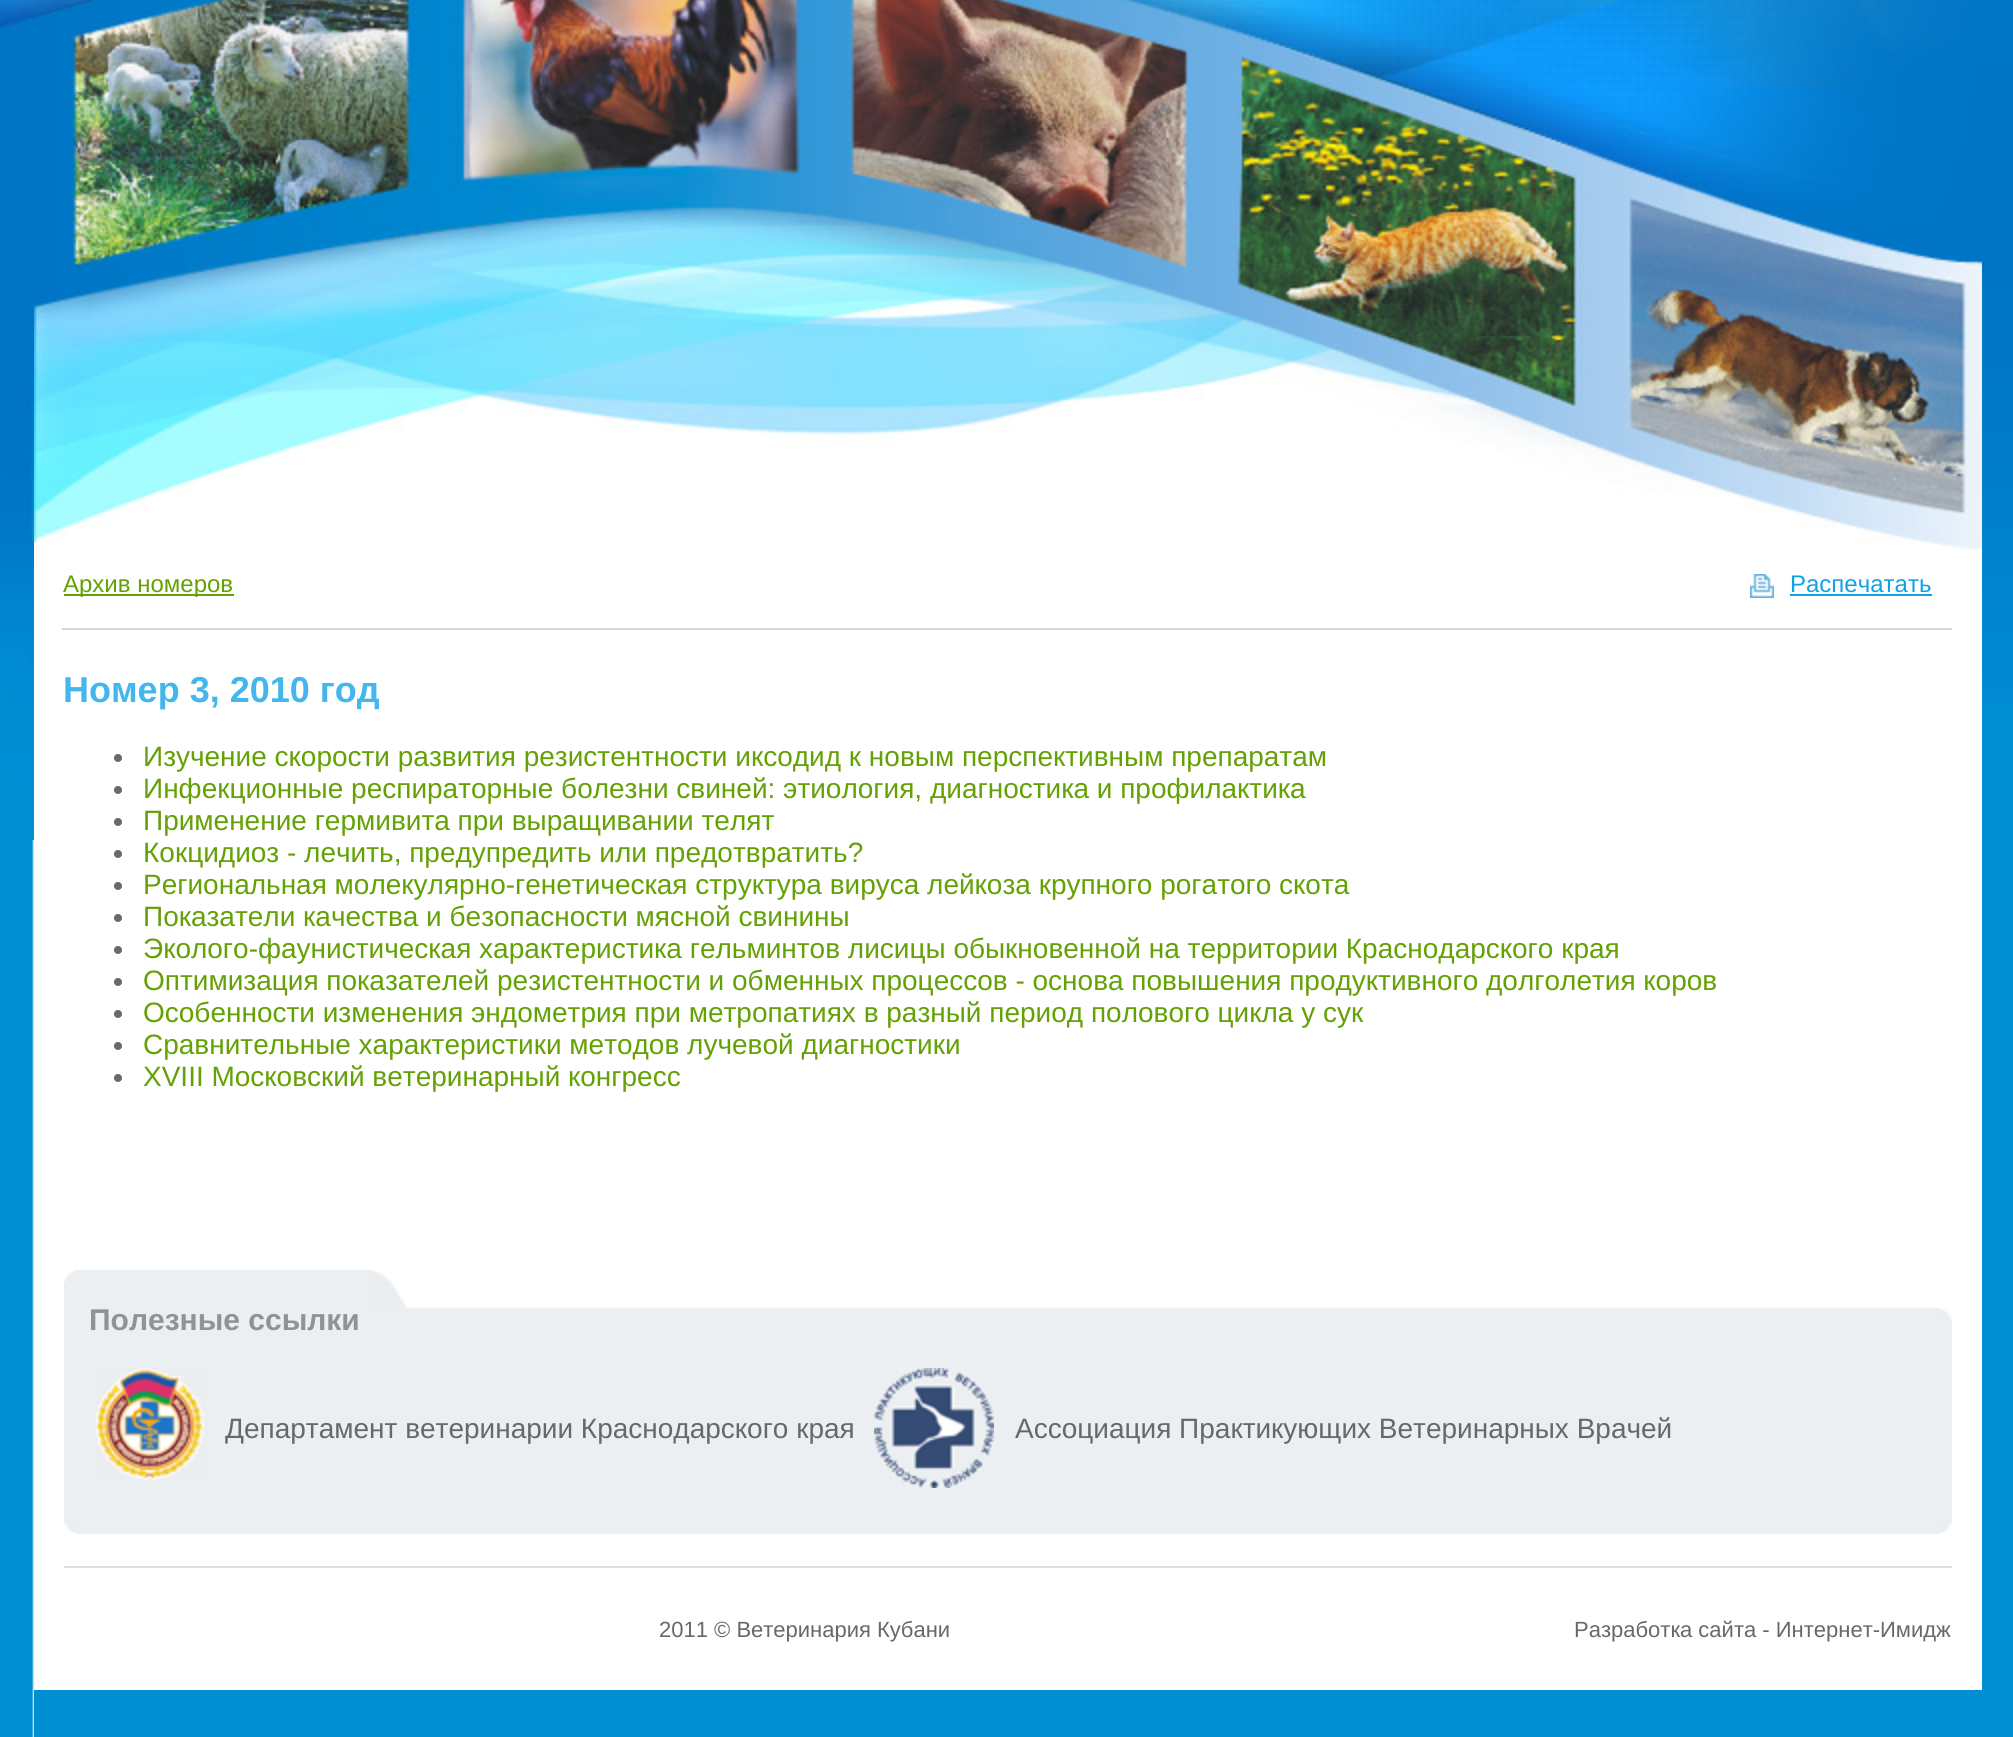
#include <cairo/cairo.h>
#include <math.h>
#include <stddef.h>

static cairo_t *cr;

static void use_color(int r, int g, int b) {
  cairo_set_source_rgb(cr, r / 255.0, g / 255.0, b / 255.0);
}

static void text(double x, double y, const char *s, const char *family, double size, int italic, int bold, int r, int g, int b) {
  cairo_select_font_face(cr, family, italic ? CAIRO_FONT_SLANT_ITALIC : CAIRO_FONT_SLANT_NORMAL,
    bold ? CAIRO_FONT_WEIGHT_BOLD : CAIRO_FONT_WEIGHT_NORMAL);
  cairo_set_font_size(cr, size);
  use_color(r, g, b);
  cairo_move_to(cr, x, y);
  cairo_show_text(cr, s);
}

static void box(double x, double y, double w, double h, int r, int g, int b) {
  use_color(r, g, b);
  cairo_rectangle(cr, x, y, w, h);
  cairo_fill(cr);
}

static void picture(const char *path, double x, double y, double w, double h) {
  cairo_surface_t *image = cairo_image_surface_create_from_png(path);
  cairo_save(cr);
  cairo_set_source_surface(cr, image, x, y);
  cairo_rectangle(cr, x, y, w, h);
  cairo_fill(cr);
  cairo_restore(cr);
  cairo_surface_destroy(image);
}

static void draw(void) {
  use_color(255, 255, 255);
  cairo_paint(cr);
  picture("img_01.png", 0, 840, 34, 897);
  picture("img_02.png", 0, 0, 34, 840);
  box(1982, 703, 31, 1034, 0, 143, 211);
  picture("img_03.png", 1982, 0, 31, 703);
  picture("img_04.png", 34, 0, 1948, 550);
  box(64, 594, 170, 2, 100, 161, 5);
  box(62, 628, 1890, 2, 216, 216, 216);
  picture("img_05.png", 1750, 574, 24, 24);
  box(1790, 594, 142, 2, 17, 162, 229);
  use_color(104, 104, 104);
  cairo_arc(cr, 118, 758, 4, 0, 2 * M_PI);
  cairo_fill(cr);
  cairo_arc(cr, 118, 790, 4, 0, 2 * M_PI);
  cairo_fill(cr);
  cairo_arc(cr, 118, 822, 4, 0, 2 * M_PI);
  cairo_fill(cr);
  cairo_arc(cr, 118, 854, 4, 0, 2 * M_PI);
  cairo_fill(cr);
  cairo_arc(cr, 118, 886, 4, 0, 2 * M_PI);
  cairo_fill(cr);
  cairo_arc(cr, 118, 918, 4, 0, 2 * M_PI);
  cairo_fill(cr);
  cairo_arc(cr, 118, 950, 4, 0, 2 * M_PI);
  cairo_fill(cr);
  cairo_arc(cr, 118, 982, 4, 0, 2 * M_PI);
  cairo_fill(cr);
  cairo_arc(cr, 118, 1014, 4, 0, 2 * M_PI);
  cairo_fill(cr);
  cairo_arc(cr, 118, 1046, 4, 0, 2 * M_PI);
  cairo_fill(cr);
  cairo_arc(cr, 118, 1078, 4, 0, 2 * M_PI);
  cairo_fill(cr);
  box(64, 1270, 1888, 264, 235, 239, 242);
  picture("img_06.png", 64, 1270, 11, 12);
  picture("img_07.png", 372, 1270, 40, 39);
  picture("img_08.png", 412, 1270, 1540, 39);
  picture("img_09.png", 1940, 1307, 12, 13);
  picture("img_10.png", 94, 1368, 111, 112);
  picture("img_11.png", 874, 1368, 120, 120);
  picture("img_12.png", 64, 1522, 13, 12);
  picture("img_13.png", 1939, 1522, 13, 12);
  box(34, 1690, 1948, 47, 0, 143, 211);
  box(64, 1566, 1888, 2, 223, 223, 223);
  text(63, 592, "Архив номеров", "Liberation Sans", 24, 0, 0, 100, 161, 5);
  text(1790, 592, "Распечатать", "Liberation Sans", 24, 0, 0, 17, 162, 229);
  text(63, 702, "Номер 3, 2010 год", "Liberation Sans", 36, 0, 1, 67, 182, 237);
  text(143, 766, "Изучение скорости развития резистентности иксодид к новым перспективным препаратам", "Liberation Sans", 28, 0, 0, 100, 161, 5);
  text(143, 798, "Инфекционные респираторные болезни свиней: этиология, диагностика и профилактика", "Liberation Sans", 28, 0, 0, 100, 161, 5);
  text(143, 830, "Применение гермивита при выращивании телят", "Liberation Sans", 28, 0, 0, 100, 161, 5);
  text(143, 862, "Кокцидиоз - лечить, предупредить или предотвратить?", "Liberation Sans", 28, 0, 0, 100, 161, 5);
  text(143, 894, "Региональная молекулярно-генетическая структура вируса лейкоза крупного рогатого скота", "Liberation Sans", 28, 0, 0, 100, 161, 5);
  text(143, 926, "Показатели качества и безопасности мясной свинины", "Liberation Sans", 28, 0, 0, 100, 161, 5);
  text(143, 958, "Эколого-фаунистическая характеристика гельминтов лисицы обыкновенной на территории Краснодарского края", "Liberation Sans", 28, 0, 0, 100, 161, 5);
  text(143, 990, "Оптимизация показателей резистентности и обменных процессов - основа повышения продуктивного долголетия коров", "Liberation Sans", 28, 0, 0, 100, 161, 5);
  text(143, 1022, "Особенности изменения эндометрия при метропатиях в разный период полового цикла у сук", "Liberation Sans", 28, 0, 0, 100, 161, 5);
  text(143, 1054, "Сравнительные характеристики методов лучевой диагностики", "Liberation Sans", 28, 0, 0, 100, 161, 5);
  text(143, 1086, "XVIII Московский ветеринарный конгресс", "Liberation Sans", 28, 0, 0, 100, 161, 5);
  text(89, 1330, "Полезные ссылки", "Liberation Sans", 30, 0, 1, 146, 146, 148);
  text(225, 1438, "Департамент ветеринарии Краснодарского края", "Liberation Sans", 28, 0, 0, 104, 104, 104);
  text(1015, 1438, "Ассоциация Практикующих Ветеринарных Врачей", "Liberation Sans", 28, 0, 0, 104, 104, 104);
  text(659, 1637, "2011 © Ветеринария Кубани", "Liberation Sans", 22, 0, 0, 104, 104, 104);
  text(1574, 1637, "Разработка сайта - Интернет-Имидж", "Liberation Sans", 22, 0, 0, 104, 104, 104);
}

int main(void) {
  cairo_surface_t *surface = cairo_image_surface_create(CAIRO_FORMAT_RGB24, 2013, 1737);
  cr = cairo_create(surface);
  cairo_font_options_t *options = cairo_font_options_create();
  cairo_font_options_set_hint_metrics(options, CAIRO_HINT_METRICS_OFF);
  cairo_font_options_set_hint_style(options, CAIRO_HINT_STYLE_NONE);
  cairo_set_font_options(cr, options);
  cairo_set_miter_limit(cr, 4);
  draw();
  cairo_surface_write_to_png(surface, "out.png");
  cairo_font_options_destroy(options);
  cairo_destroy(cr);
  cairo_surface_destroy(surface);
  return 0;
}
